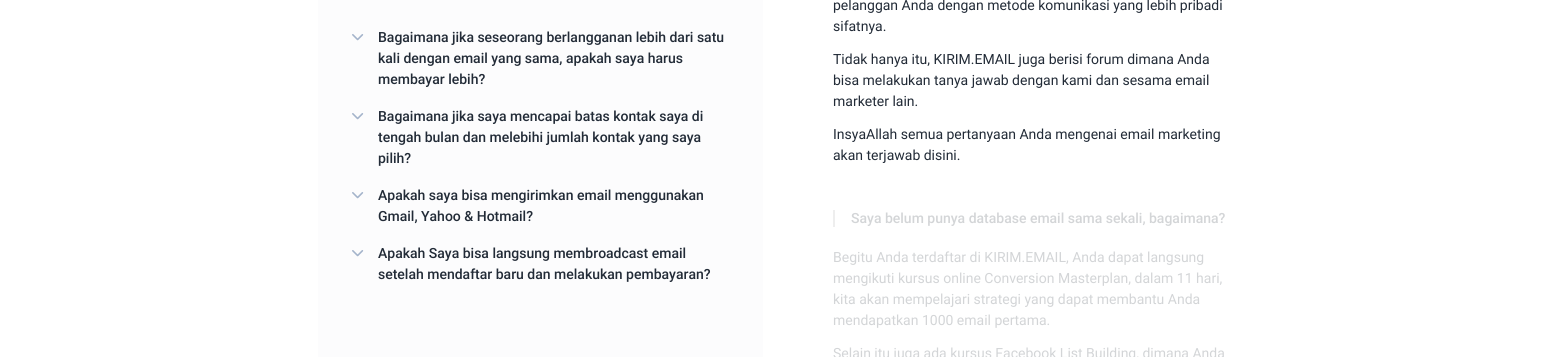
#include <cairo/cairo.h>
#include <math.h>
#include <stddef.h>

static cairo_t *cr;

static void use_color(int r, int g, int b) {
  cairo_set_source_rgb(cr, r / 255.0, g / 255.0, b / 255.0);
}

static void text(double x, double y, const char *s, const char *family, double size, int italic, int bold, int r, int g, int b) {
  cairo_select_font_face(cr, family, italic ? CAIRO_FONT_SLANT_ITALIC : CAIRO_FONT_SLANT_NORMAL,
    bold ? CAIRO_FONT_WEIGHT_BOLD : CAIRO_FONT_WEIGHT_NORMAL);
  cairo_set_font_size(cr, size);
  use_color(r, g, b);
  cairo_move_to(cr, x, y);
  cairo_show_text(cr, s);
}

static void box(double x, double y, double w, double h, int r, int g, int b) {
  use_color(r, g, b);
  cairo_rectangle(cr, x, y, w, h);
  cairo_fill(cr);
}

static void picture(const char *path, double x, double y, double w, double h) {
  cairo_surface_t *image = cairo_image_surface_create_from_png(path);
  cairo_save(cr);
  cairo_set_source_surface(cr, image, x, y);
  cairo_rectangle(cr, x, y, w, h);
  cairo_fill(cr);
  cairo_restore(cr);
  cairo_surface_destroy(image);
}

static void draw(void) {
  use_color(255, 255, 255);
  cairo_paint(cr);
  box(318, 0, 445, 357, 252, 252, 253);
  picture("img_01.png", 352, 34, 12, 7);
  picture("img_01.png", 352, 113, 12, 7);
  picture("img_01.png", 352, 192, 12, 7);
  picture("img_01.png", 352, 250, 12, 7);
  box(833, 210, 2, 17, 238, 238, 238);
  text(378, 42, "Bagaimana jika seseorang berlangganan lebih dari satu", "Roboto Medium", 14, 0, 0, 34, 43, 55);
  text(378, 63, "kali dengan email yang sama, apakah saya harus", "Roboto Medium", 14, 0, 0, 34, 43, 55);
  text(378, 84, "membayar lebih?", "Roboto Medium", 14, 0, 0, 34, 43, 55);
  text(378, 121, "Bagaimana jika saya mencapai batas kontak saya di", "Roboto Medium", 14, 0, 0, 34, 43, 55);
  text(378, 142, "tengah bulan dan melebihi jumlah kontak yang saya", "Roboto Medium", 14, 0, 0, 34, 43, 55);
  text(378, 163, "pilih?", "Roboto Medium", 14, 0, 0, 34, 43, 55);
  text(378, 200, "Apakah saya bisa mengirimkan email menggunakan", "Roboto Medium", 14, 0, 0, 34, 43, 55);
  text(378, 221, "Gmail, Yahoo & Hotmail?", "Roboto Medium", 14, 0, 0, 34, 43, 55);
  text(378, 258, "Apakah Saya bisa langsung membroadcast email", "Roboto Medium", 14, 0, 0, 34, 43, 55);
  text(378, 279, "setelah mendaftar baru dan melakukan pembayaran?", "Roboto Medium", 14, 0, 0, 34, 43, 55);
  text(833, 10, "pelanggan Anda dengan metode komunikasi yang lebih pribadi", "Roboto", 14, 0, 0, 34, 43, 55);
  text(833, 31, "sifatnya.", "Roboto", 14, 0, 0, 34, 43, 55);
  text(833, 64, "Tidak hanya itu, KIRIM.EMAIL juga berisi forum dimana Anda", "Roboto", 14, 0, 0, 34, 43, 55);
  text(833, 85, "bisa melakukan tanya jawab dengan kami dan sesama email", "Roboto", 14, 0, 0, 34, 43, 55);
  text(833, 106, "marketer lain.", "Roboto", 14, 0, 0, 34, 43, 55);
  text(833, 139, "InsyaAllah semua pertanyaan Anda mengenai email marketing", "Roboto", 14, 0, 0, 34, 43, 55);
  text(833, 160, "akan terjawab disini.", "Roboto", 14, 0, 0, 34, 43, 55);
  text(851, 223, "Saya belum punya database email sama sekali, bagaimana?", "Roboto Medium", 14, 0, 0, 211, 213, 215);
  text(833, 262, "Begitu Anda terdaftar di KIRIM.EMAIL, Anda dapat langsung", "Roboto", 14, 0, 0, 211, 213, 215);
  text(833, 283, "mengikuti kursus online Conversion Masterplan, dalam 11 hari,", "Roboto", 14, 0, 0, 211, 213, 215);
  text(833, 304, "kita akan mempelajari strategi yang dapat membantu Anda", "Roboto", 14, 0, 0, 211, 213, 215);
  text(833, 325, "mendapatkan 1000 email pertama.", "Roboto", 14, 0, 0, 211, 213, 215);
  text(833, 358, "Selain itu juga ada kursus Facebook List Building, dimana Anda", "Roboto", 14, 0, 0, 211, 213, 215);
}

int main(void) {
  cairo_surface_t *surface = cairo_image_surface_create(CAIRO_FORMAT_RGB24, 1556, 357);
  cr = cairo_create(surface);
  cairo_font_options_t *options = cairo_font_options_create();
  cairo_font_options_set_hint_metrics(options, CAIRO_HINT_METRICS_OFF);
  cairo_font_options_set_hint_style(options, CAIRO_HINT_STYLE_NONE);
  cairo_set_font_options(cr, options);
  cairo_set_miter_limit(cr, 4);
  draw();
  cairo_surface_write_to_png(surface, "out.png");
  cairo_font_options_destroy(options);
  cairo_destroy(cr);
  cairo_surface_destroy(surface);
  return 0;
}
